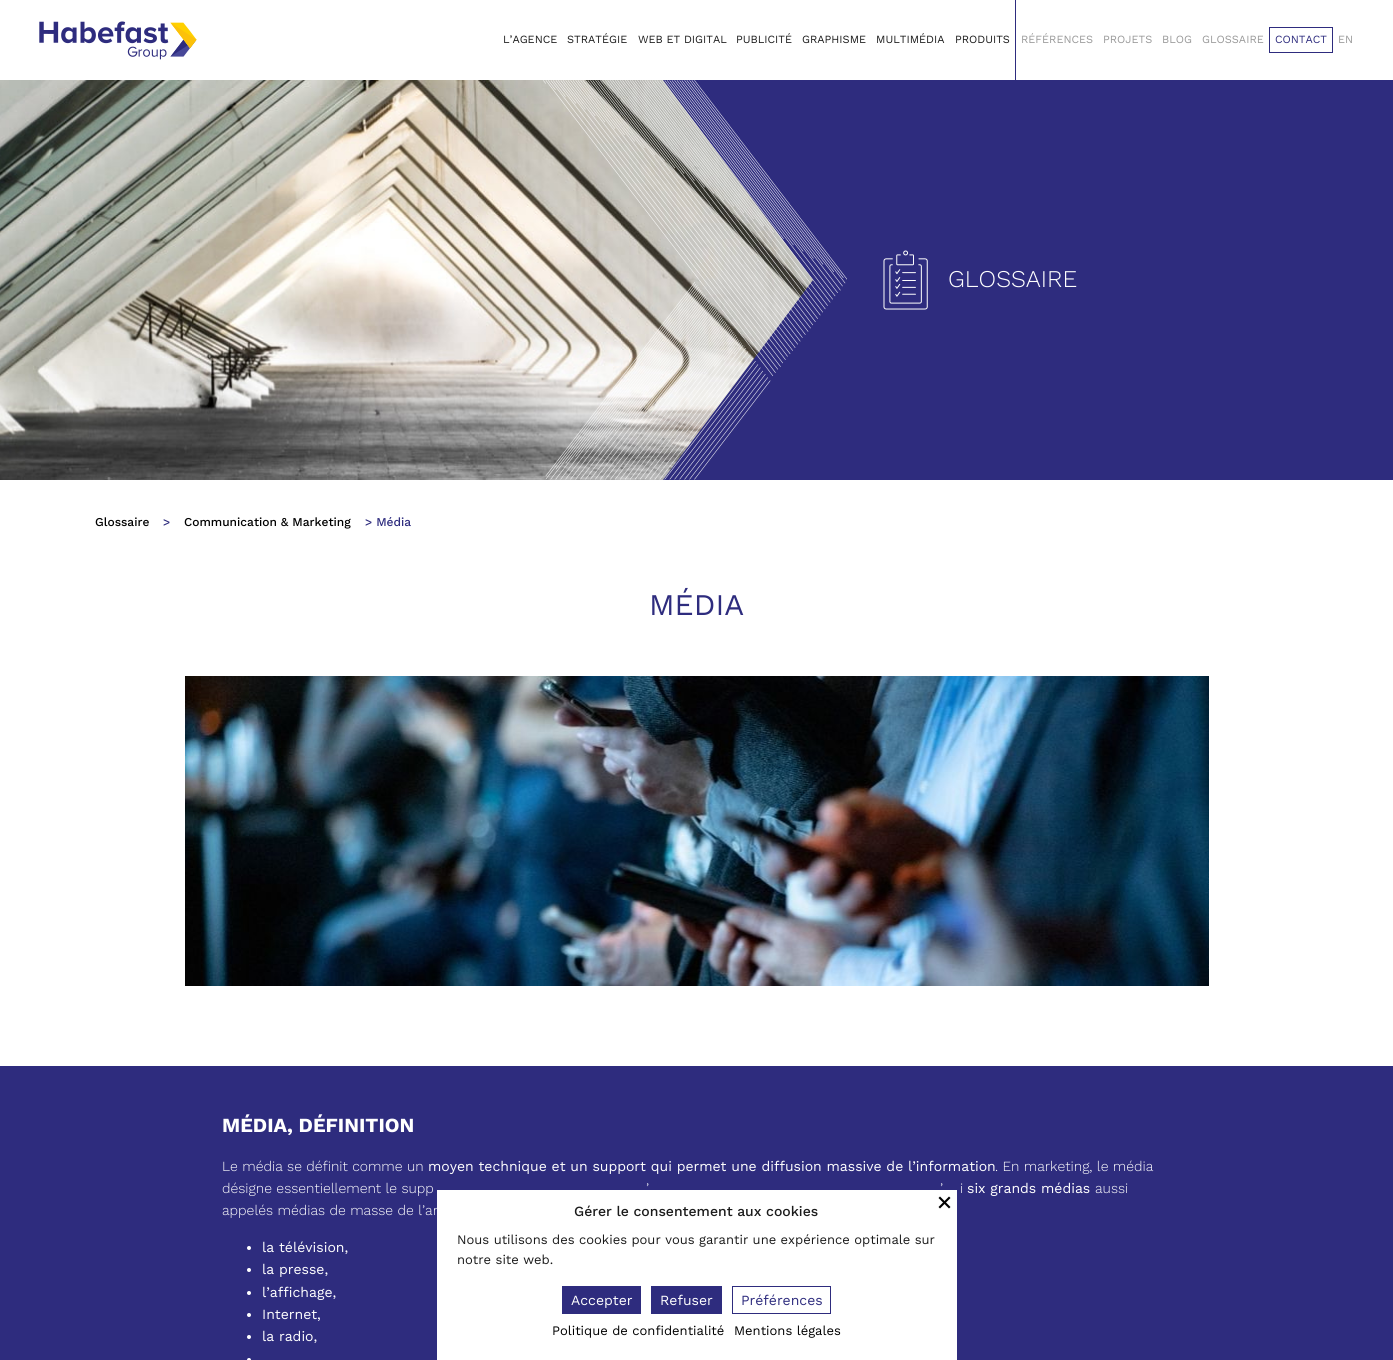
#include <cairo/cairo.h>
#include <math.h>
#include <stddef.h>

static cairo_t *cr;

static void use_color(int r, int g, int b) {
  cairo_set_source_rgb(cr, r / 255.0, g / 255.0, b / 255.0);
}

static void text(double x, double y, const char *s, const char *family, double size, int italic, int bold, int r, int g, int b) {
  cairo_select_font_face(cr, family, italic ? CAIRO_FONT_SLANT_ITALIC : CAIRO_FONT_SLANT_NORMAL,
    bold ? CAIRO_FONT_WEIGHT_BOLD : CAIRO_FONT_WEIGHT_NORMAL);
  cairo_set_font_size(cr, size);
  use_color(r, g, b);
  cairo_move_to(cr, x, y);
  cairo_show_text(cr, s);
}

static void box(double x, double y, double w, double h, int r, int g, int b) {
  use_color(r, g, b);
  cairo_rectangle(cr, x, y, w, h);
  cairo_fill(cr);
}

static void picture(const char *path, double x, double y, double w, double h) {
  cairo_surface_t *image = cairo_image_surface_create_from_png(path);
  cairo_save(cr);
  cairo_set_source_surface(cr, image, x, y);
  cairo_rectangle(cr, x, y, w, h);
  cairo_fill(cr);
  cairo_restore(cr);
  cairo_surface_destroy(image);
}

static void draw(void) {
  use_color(255, 255, 255);
  cairo_paint(cr);
  picture("img_01.png", 39, 21, 158, 39);
  box(1015, 0, 1, 80, 46, 44, 126);
  cairo_rectangle(cr, 1269.5, 27.5, 63, 25);
  cairo_set_line_width(cr, 1);
  cairo_stroke(cr);
  picture("img_02.png", 0, 80, 813, 400);
  box(813, 80, 580, 400, 46, 44, 126);
  cairo_new_path(cr);
  cairo_move_to(cr, 663, 80);
  cairo_line_to(cr, 963, 80);
  cairo_line_to(cr, 813, 280);
  cairo_close_path(cr);
  cairo_fill(cr);
  cairo_new_path(cr);
  cairo_move_to(cr, 963, 480);
  cairo_line_to(cr, 663, 480);
  cairo_line_to(cr, 813, 280);
  cairo_close_path(cr);
  cairo_fill(cr);
  picture("img_03.png", 543, 80, 304, 400);
  picture("img_04.png", 883, 250, 45, 60);
  picture("img_05.png", 185, 676, 1024, 310);
  box(0, 1066, 1393, 294, 46, 44, 126);
  use_color(255, 255, 255);
  cairo_arc(cr, 249, 1248, 2, 0, 2 * M_PI);
  cairo_fill(cr);
  cairo_arc(cr, 249, 1270, 2, 0, 2 * M_PI);
  cairo_fill(cr);
  cairo_arc(cr, 249, 1293, 2, 0, 2 * M_PI);
  cairo_fill(cr);
  cairo_arc(cr, 249, 1315, 2, 0, 2 * M_PI);
  cairo_fill(cr);
  cairo_arc(cr, 249, 1337, 2, 0, 2 * M_PI);
  cairo_fill(cr);
  cairo_arc(cr, 249, 1360, 2, 0, 2 * M_PI);
  cairo_fill(cr);
  box(437, 1190, 520, 170, 255, 255, 255);
  use_color(0, 0, 0);
  cairo_new_path(cr);
  cairo_move_to(cr, 949, 1196.5);
  cairo_line_to(cr, 950.5, 1198);
  cairo_line_to(cr, 940, 1208.5);
  cairo_line_to(cr, 938.5, 1207);
  cairo_close_path(cr);
  cairo_fill(cr);
  cairo_new_path(cr);
  cairo_move_to(cr, 938.5, 1198);
  cairo_line_to(cr, 940, 1196.5);
  cairo_line_to(cr, 950.5, 1207);
  cairo_line_to(cr, 949, 1208.5);
  cairo_close_path(cr);
  cairo_fill(cr);
  box(562, 1286, 79, 28, 46, 44, 126);
  box(651, 1286, 71, 28, 46, 44, 126);
  cairo_rectangle(cr, 732.5, 1286.5, 98, 27);
  cairo_stroke(cr);
  text(503, 43, "L’AGENCE", "Work Sans", 11, 0, 0, 27, 27, 27);
  text(567, 43, "STRATÉGIE", "Work Sans", 11, 0, 0, 27, 27, 27);
  text(638, 43, "WEB ET DIGITAL", "Work Sans", 11, 0, 0, 27, 27, 27);
  text(736, 43, "PUBLICITÉ", "Work Sans", 11, 0, 0, 27, 27, 27);
  text(802, 43, "GRAPHISME", "Work Sans", 11, 0, 0, 27, 27, 27);
  text(876, 43, "MULTIMÉDIA", "Work Sans", 11, 0, 0, 27, 27, 27);
  text(955, 43, "PRODUITS", "Work Sans", 11, 0, 0, 27, 27, 27);
  text(1021, 43, "RÉFÉRENCES", "Work Sans", 11, 0, 0, 153, 153, 153);
  text(1103, 43, "PROJETS", "Work Sans", 11, 0, 0, 153, 153, 153);
  text(1162, 43, "BLOG", "Work Sans", 11, 0, 0, 153, 153, 153);
  text(1202, 43, "GLOSSAIRE", "Work Sans", 11, 0, 0, 153, 153, 153);
  text(1275, 43, "CONTACT", "Work Sans", 11, 0, 0, 46, 44, 126);
  text(1338, 43, "EN", "Work Sans", 11, 0, 0, 153, 153, 153);
  text(948, 287, "GLOSSAIRE", "Work Sans Light", 24, 0, 0, 255, 255, 255);
  text(95, 526, "Glossaire", "Work Sans Medium", 12, 0, 0, 0, 0, 0);
  text(163, 526, ">", "Work Sans Medium", 12, 0, 0, 46, 44, 126);
  text(184, 526, "Communication & Marketing", "Work Sans Medium", 12, 0, 0, 0, 0, 0);
  text(365, 526, "> Média", "Work Sans Medium", 12, 0, 0, 46, 44, 126);
  text(649, 615, "MÉDIA", "Work Sans", 30, 0, 0, 46, 44, 126);
  text(222, 1132, "MÉDIA, DÉFINITION", "Work Sans", 20, 0, 1, 255, 255, 255);
  text(222, 1171, "Le média se définit comme un", "Work Sans Light", 14, 0, 0, 255, 255, 255);
  text(428, 1171, "moyen technique et un support qui permet une diffusion massive de l’information", "Work Sans", 14, 0, 0, 255, 255, 255);
  text(995, 1171, ". En marketing, le média", "Work Sans Light", 14, 0, 0, 255, 255, 255);
  text(222, 1193, "désigne essentiellement le supp", "Work Sans Light", 14, 0, 0, 255, 255, 255);
  text(646, 1193, "’", "Work Sans Light", 14, 0, 0, 255, 255, 255);
  text(940, 1193, "’", "Work Sans Light", 14, 0, 0, 255, 255, 255);
  text(960, 1193, "i", "Work Sans Light", 14, 0, 0, 255, 255, 255);
  text(967, 1193, "six grands médias", "Work Sans", 14, 0, 0, 255, 255, 255);
  text(1095, 1193, "aussi", "Work Sans Light", 14, 0, 0, 255, 255, 255);
  text(222, 1215, "appelés médias de masse de l’an", "Work Sans Light", 14, 0, 0, 255, 255, 255);
  text(262, 1252, "la télévision,", "Work Sans", 14, 0, 0, 255, 255, 255);
  text(262, 1274, "la presse,", "Work Sans", 14, 0, 0, 255, 255, 255);
  text(262, 1297, "l’affichage,", "Work Sans", 14, 0, 0, 255, 255, 255);
  text(262, 1319, "Internet,", "Work Sans", 14, 0, 0, 255, 255, 255);
  text(262, 1341, "la radio,", "Work Sans", 14, 0, 0, 255, 255, 255);
  text(574, 1216, "Gérer le consentement aux cookies", "Work Sans Medium", 14, 0, 0, 27, 27, 27);
  text(457, 1244, "Nous utilisons des cookies pour vous garantir une expérience optimale sur", "Work Sans", 13, 0, 0, 27, 27, 27);
  text(457, 1264, "notre site web.", "Work Sans", 13, 0, 0, 27, 27, 27);
  text(571, 1305, "Accepter", "Work Sans", 14, 0, 0, 255, 255, 255);
  text(660, 1305, "Refuser", "Work Sans", 14, 0, 0, 255, 255, 255);
  text(741, 1305, "Préférences", "Work Sans", 14, 0, 0, 46, 44, 126);
  text(552, 1335, "Politique de confidentialité", "Work Sans", 13, 0, 0, 0, 0, 0);
  text(734, 1335, "Mentions légales", "Work Sans", 13, 0, 0, 0, 0, 0);
}

int main(void) {
  cairo_surface_t *surface = cairo_image_surface_create(CAIRO_FORMAT_RGB24, 1393, 1360);
  cr = cairo_create(surface);
  cairo_font_options_t *options = cairo_font_options_create();
  cairo_font_options_set_hint_metrics(options, CAIRO_HINT_METRICS_OFF);
  cairo_font_options_set_hint_style(options, CAIRO_HINT_STYLE_NONE);
  cairo_set_font_options(cr, options);
  cairo_set_miter_limit(cr, 4);
  draw();
  cairo_surface_write_to_png(surface, "out.png");
  cairo_font_options_destroy(options);
  cairo_destroy(cr);
  cairo_surface_destroy(surface);
  return 0;
}
